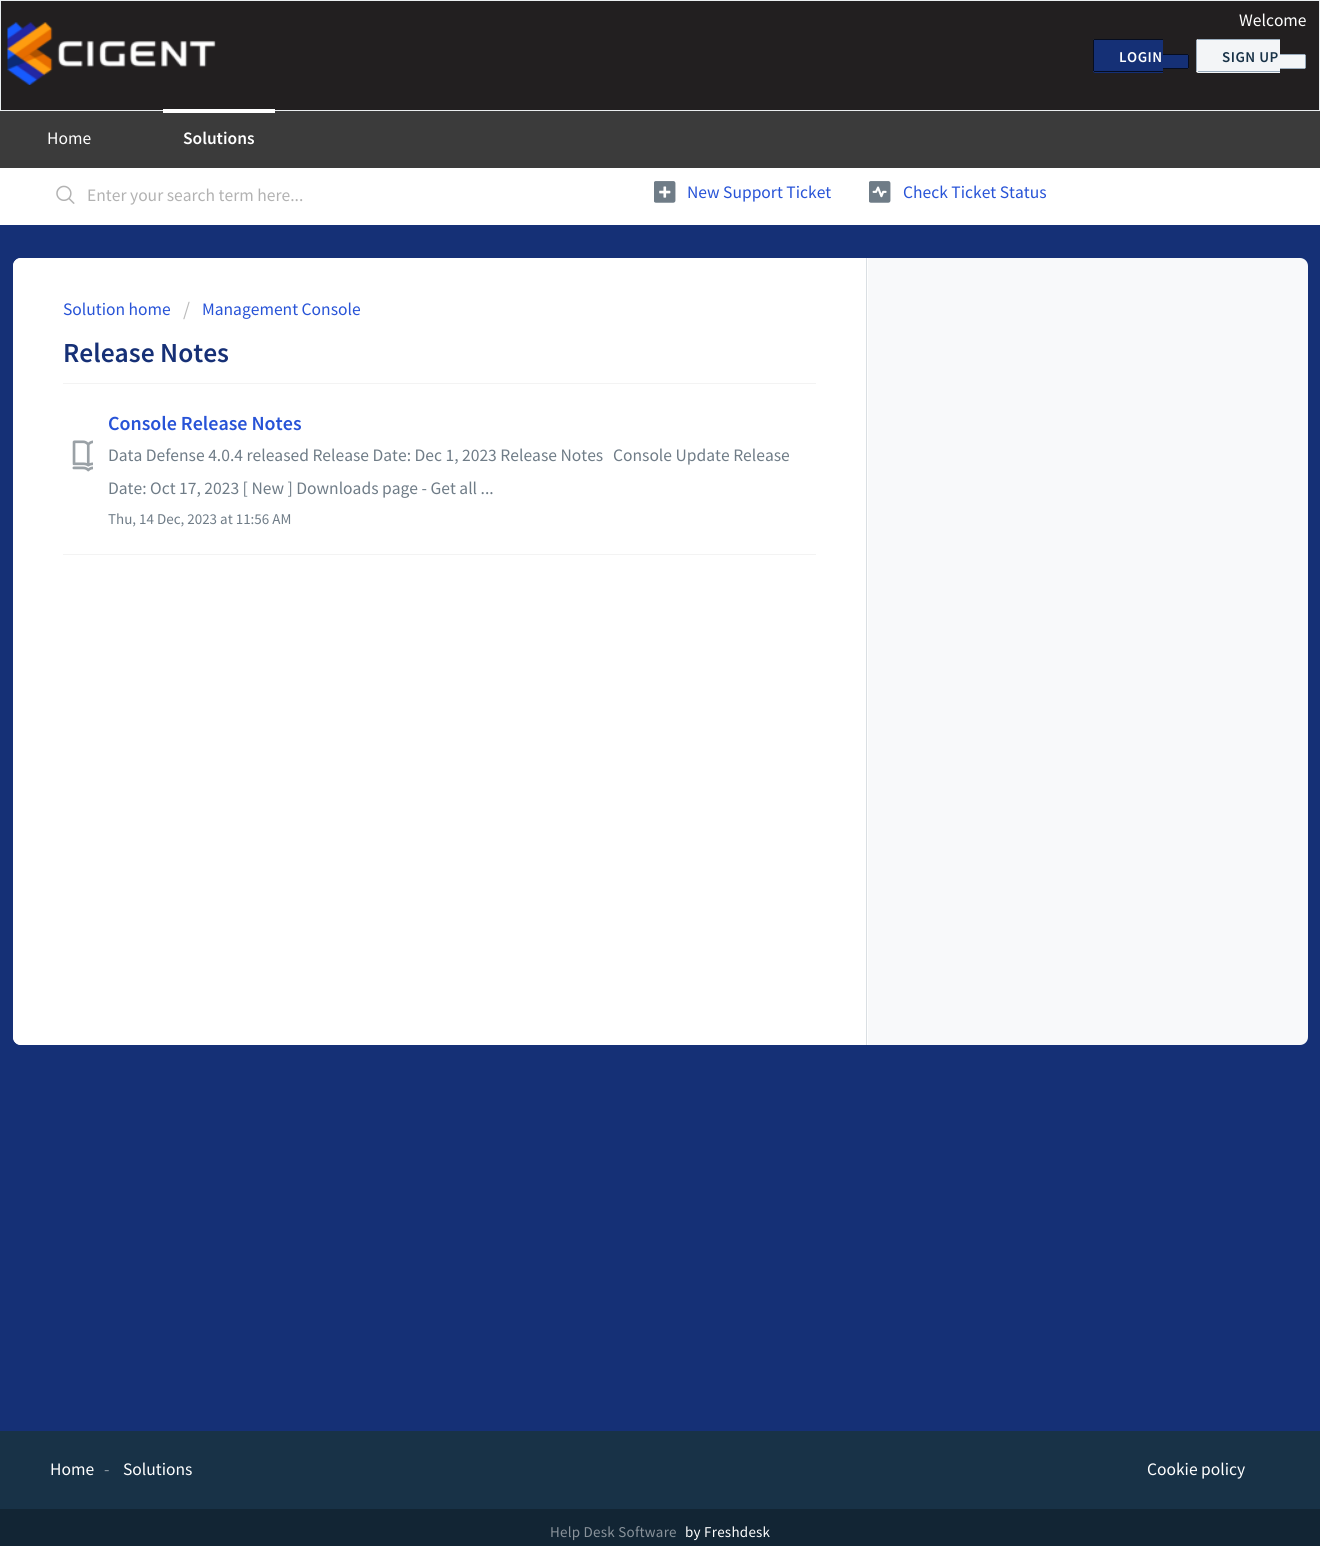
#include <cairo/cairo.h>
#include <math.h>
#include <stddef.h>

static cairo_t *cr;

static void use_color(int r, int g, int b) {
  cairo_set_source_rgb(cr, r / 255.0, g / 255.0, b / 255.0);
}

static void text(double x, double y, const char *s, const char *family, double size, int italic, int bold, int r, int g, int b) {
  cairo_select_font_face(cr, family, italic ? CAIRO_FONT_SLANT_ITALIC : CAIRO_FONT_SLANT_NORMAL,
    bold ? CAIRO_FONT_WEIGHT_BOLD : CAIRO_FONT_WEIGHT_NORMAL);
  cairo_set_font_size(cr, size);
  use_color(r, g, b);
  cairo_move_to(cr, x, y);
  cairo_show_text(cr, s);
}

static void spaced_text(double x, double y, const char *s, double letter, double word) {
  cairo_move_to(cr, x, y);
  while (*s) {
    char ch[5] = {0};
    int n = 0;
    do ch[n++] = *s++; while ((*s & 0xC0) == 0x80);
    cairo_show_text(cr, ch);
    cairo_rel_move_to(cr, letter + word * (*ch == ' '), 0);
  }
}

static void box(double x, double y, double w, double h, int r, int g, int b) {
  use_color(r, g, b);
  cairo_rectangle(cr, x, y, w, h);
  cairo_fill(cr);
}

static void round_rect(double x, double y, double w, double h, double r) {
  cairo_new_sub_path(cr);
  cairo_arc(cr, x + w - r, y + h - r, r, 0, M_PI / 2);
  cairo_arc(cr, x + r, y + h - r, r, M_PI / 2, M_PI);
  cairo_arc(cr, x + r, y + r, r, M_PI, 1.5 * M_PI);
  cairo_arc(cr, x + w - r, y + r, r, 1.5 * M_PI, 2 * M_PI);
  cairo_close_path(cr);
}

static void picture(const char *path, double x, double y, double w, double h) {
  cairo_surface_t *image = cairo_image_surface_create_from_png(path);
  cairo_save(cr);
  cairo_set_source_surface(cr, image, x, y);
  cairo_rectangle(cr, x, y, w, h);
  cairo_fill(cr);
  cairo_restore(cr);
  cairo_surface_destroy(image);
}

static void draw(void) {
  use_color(21, 48, 118);
  cairo_paint(cr);
  use_color(34, 31, 32);
  cairo_rectangle(cr, 0.5, 0.5, 1319, 110);
  cairo_fill_preserve(cr);
  use_color(235, 238, 240);
  cairo_set_line_width(cr, 1);
  cairo_stroke(cr);
  picture("img_01.png", 7, 22, 209, 63);
  use_color(21, 48, 118);
  cairo_new_path(cr);
  cairo_move_to(cr, 1095.5, 39);
  cairo_line_to(cr, 1163, 39);
  cairo_line_to(cr, 1163, 73);
  cairo_line_to(cr, 1095.5, 73);
  cairo_curve_to(cr, 1094, 73, 1093, 72, 1093, 70.5);
  cairo_line_to(cr, 1093, 41.5);
  cairo_curve_to(cr, 1093, 40, 1094, 39, 1095.5, 39);
  cairo_close_path(cr);
  cairo_fill(cr);
  box(1094, 39, 69, 1, 6, 13, 31);
  box(1094, 71, 69, 1, 6, 13, 31);
  box(1093, 40, 1, 31, 6, 13, 31);
  use_color(21, 48, 118);
  cairo_new_path(cr);
  cairo_move_to(cr, 1163, 54);
  cairo_line_to(cr, 1186.5, 54);
  cairo_curve_to(cr, 1188, 54, 1189, 55, 1189, 56.5);
  cairo_line_to(cr, 1189, 66.5);
  cairo_curve_to(cr, 1189, 68, 1188, 69, 1186.5, 69);
  cairo_line_to(cr, 1163, 69);
  cairo_close_path(cr);
  cairo_fill(cr);
  box(1163, 54, 25, 1, 6, 13, 31);
  box(1188, 55, 1, 13, 6, 13, 31);
  box(1163, 68, 25, 1, 6, 13, 31);
  use_color(243, 245, 247);
  cairo_new_path(cr);
  cairo_move_to(cr, 1198.5, 39);
  cairo_line_to(cr, 1280, 39);
  cairo_line_to(cr, 1280, 73);
  cairo_line_to(cr, 1198.5, 73);
  cairo_curve_to(cr, 1197, 73, 1196, 72, 1196, 70.5);
  cairo_line_to(cr, 1196, 41.5);
  cairo_curve_to(cr, 1196, 40, 1197, 39, 1198.5, 39);
  cairo_close_path(cr);
  cairo_fill(cr);
  box(1198, 39, 82, 1, 151, 169, 186);
  box(1198, 71, 82, 1, 151, 169, 186);
  box(1196, 40, 1, 31, 151, 169, 186);
  use_color(243, 245, 247);
  cairo_new_path(cr);
  cairo_move_to(cr, 1280, 54);
  cairo_line_to(cr, 1303.5, 54);
  cairo_curve_to(cr, 1305, 54, 1306, 55, 1306, 56.5);
  cairo_line_to(cr, 1306, 66.5);
  cairo_curve_to(cr, 1306, 68, 1305, 69, 1303.5, 69);
  cairo_line_to(cr, 1280, 69);
  cairo_close_path(cr);
  cairo_fill(cr);
  box(1280, 54, 25, 1, 151, 169, 186);
  box(1305, 55, 1, 13, 151, 169, 186);
  box(1280, 68, 25, 1, 151, 169, 186);
  box(0, 111, 1320, 57, 59, 59, 59);
  box(163, 109, 112, 4, 255, 255, 255);
  box(0, 168, 1320, 57, 255, 255, 255);
  picture("img_02.png", 56, 185, 19, 19);
  picture("img_03.png", 654, 181, 22, 22);
  picture("img_04.png", 869, 181, 22, 22);
  use_color(248, 249, 250);
  round_rect(13, 258, 1295, 787, 8);
  cairo_fill(cr);
  use_color(255, 255, 255);
  cairo_new_path(cr);
  cairo_move_to(cr, 21, 258);
  cairo_line_to(cr, 868, 258);
  cairo_line_to(cr, 868, 1045);
  cairo_line_to(cr, 21, 1045);
  cairo_curve_to(cr, 16.5, 1045, 13, 1041.5, 13, 1037);
  cairo_line_to(cr, 13, 266);
  cairo_curve_to(cr, 13, 261.5, 16.5, 258, 21, 258);
  cairo_close_path(cr);
  cairo_fill(cr);
  box(866, 258, 1, 787, 218, 223, 227);
  box(63, 554, 753, 1, 243, 243, 243);
  box(63, 383, 753, 1, 243, 243, 243);
  picture("img_05.png", 72, 440, 21, 32);
  box(0, 1431, 1320, 78, 24, 50, 71);
  box(0, 1509, 1320, 37, 18, 37, 52);
  text(1239, 26, "Welcome", "Source Sans Pro", 17.5, 0, 0, 255, 255, 255);
  cairo_select_font_face(cr, "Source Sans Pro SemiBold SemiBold", CAIRO_FONT_SLANT_NORMAL, CAIRO_FONT_WEIGHT_NORMAL);
  cairo_set_font_size(cr, 15);
  spaced_text(1119, 62, "LOGIN", 0.5, 0);
  use_color(24, 50, 71);
  spaced_text(1222, 62, "SIGN UP", 0.5, 0);
  text(47, 144, "Home", "Source Sans Pro", 17.5, 0, 0, 255, 255, 255);
  text(183, 144, "Solutions", "Source Sans Pro SemiBold SemiBold", 17.5, 0, 0, 255, 255, 255);
  text(87, 201, "Enter your search term here...", "Source Sans Pro", 17.5, 0, 0, 178, 178, 178);
  text(687, 198, "New Support Ticket", "Source Sans Pro", 17.5, 0, 0, 39, 83, 215);
  text(903, 198, "Check Ticket Status", "Source Sans Pro", 17.5, 0, 0, 39, 83, 215);
  text(63, 315, "Solution home", "Source Sans Pro", 17.5, 0, 0, 39, 83, 215);
  text(183, 316, "/", "Source Sans Pro", 20, 0, 0, 187, 187, 187);
  text(202, 315, "Management Console", "Source Sans Pro", 17.5, 0, 0, 39, 83, 215);
  text(63, 362, "Release Notes", "Source Sans Pro SemiBold SemiBold", 27.5, 0, 0, 22, 48, 118);
  text(108, 430, "Console Release Notes", "Source Sans Pro SemiBold SemiBold", 20, 0, 0, 39, 83, 215);
  text(108, 461, "Data Defense 4.0.4 released Release Date: Dec 1, 2023 Release Notes", "Source Sans Pro", 17.5, 0, 0, 111, 124, 135);
  text(613, 461, "Console Update Release", "Source Sans Pro", 17.5, 0, 0, 111, 124, 135);
  text(108, 494, "Date: Oct 17, 2023 [ New ] Downloads page - Get all ...", "Source Sans Pro", 17.5, 0, 0, 111, 124, 135);
  text(108, 524, "Thu, 14 Dec, 2023 at 11:56 AM", "Source Sans Pro", 15, 0, 0, 111, 124, 135);
  text(50, 1475, "Home", "Source Sans Pro", 17.5, 0, 0, 255, 255, 255);
  text(104, 1475, "-", "Source Sans Pro", 17.5, 0, 0, 140, 153, 163);
  text(123, 1475, "Solutions", "Source Sans Pro", 17.5, 0, 0, 255, 255, 255);
  text(1147, 1475, "Cookie policy", "Source Sans Pro", 17.5, 0, 0, 255, 255, 255);
  cairo_set_font_size(cr, 15);
  use_color(137, 146, 154);
  spaced_text(550, 1537, "Help Desk Software", 0.25, 0);
  use_color(255, 255, 255);
  spaced_text(685, 1537, "by Freshdesk", 0.25, 0);
}

int main(void) {
  cairo_surface_t *surface = cairo_image_surface_create(CAIRO_FORMAT_RGB24, 1320, 1546);
  cr = cairo_create(surface);
  cairo_font_options_t *options = cairo_font_options_create();
  cairo_font_options_set_hint_metrics(options, CAIRO_HINT_METRICS_OFF);
  cairo_font_options_set_hint_style(options, CAIRO_HINT_STYLE_NONE);
  cairo_set_font_options(cr, options);
  cairo_set_miter_limit(cr, 4);
  draw();
  cairo_surface_write_to_png(surface, "out.png");
  cairo_font_options_destroy(options);
  cairo_destroy(cr);
  cairo_surface_destroy(surface);
  return 0;
}
